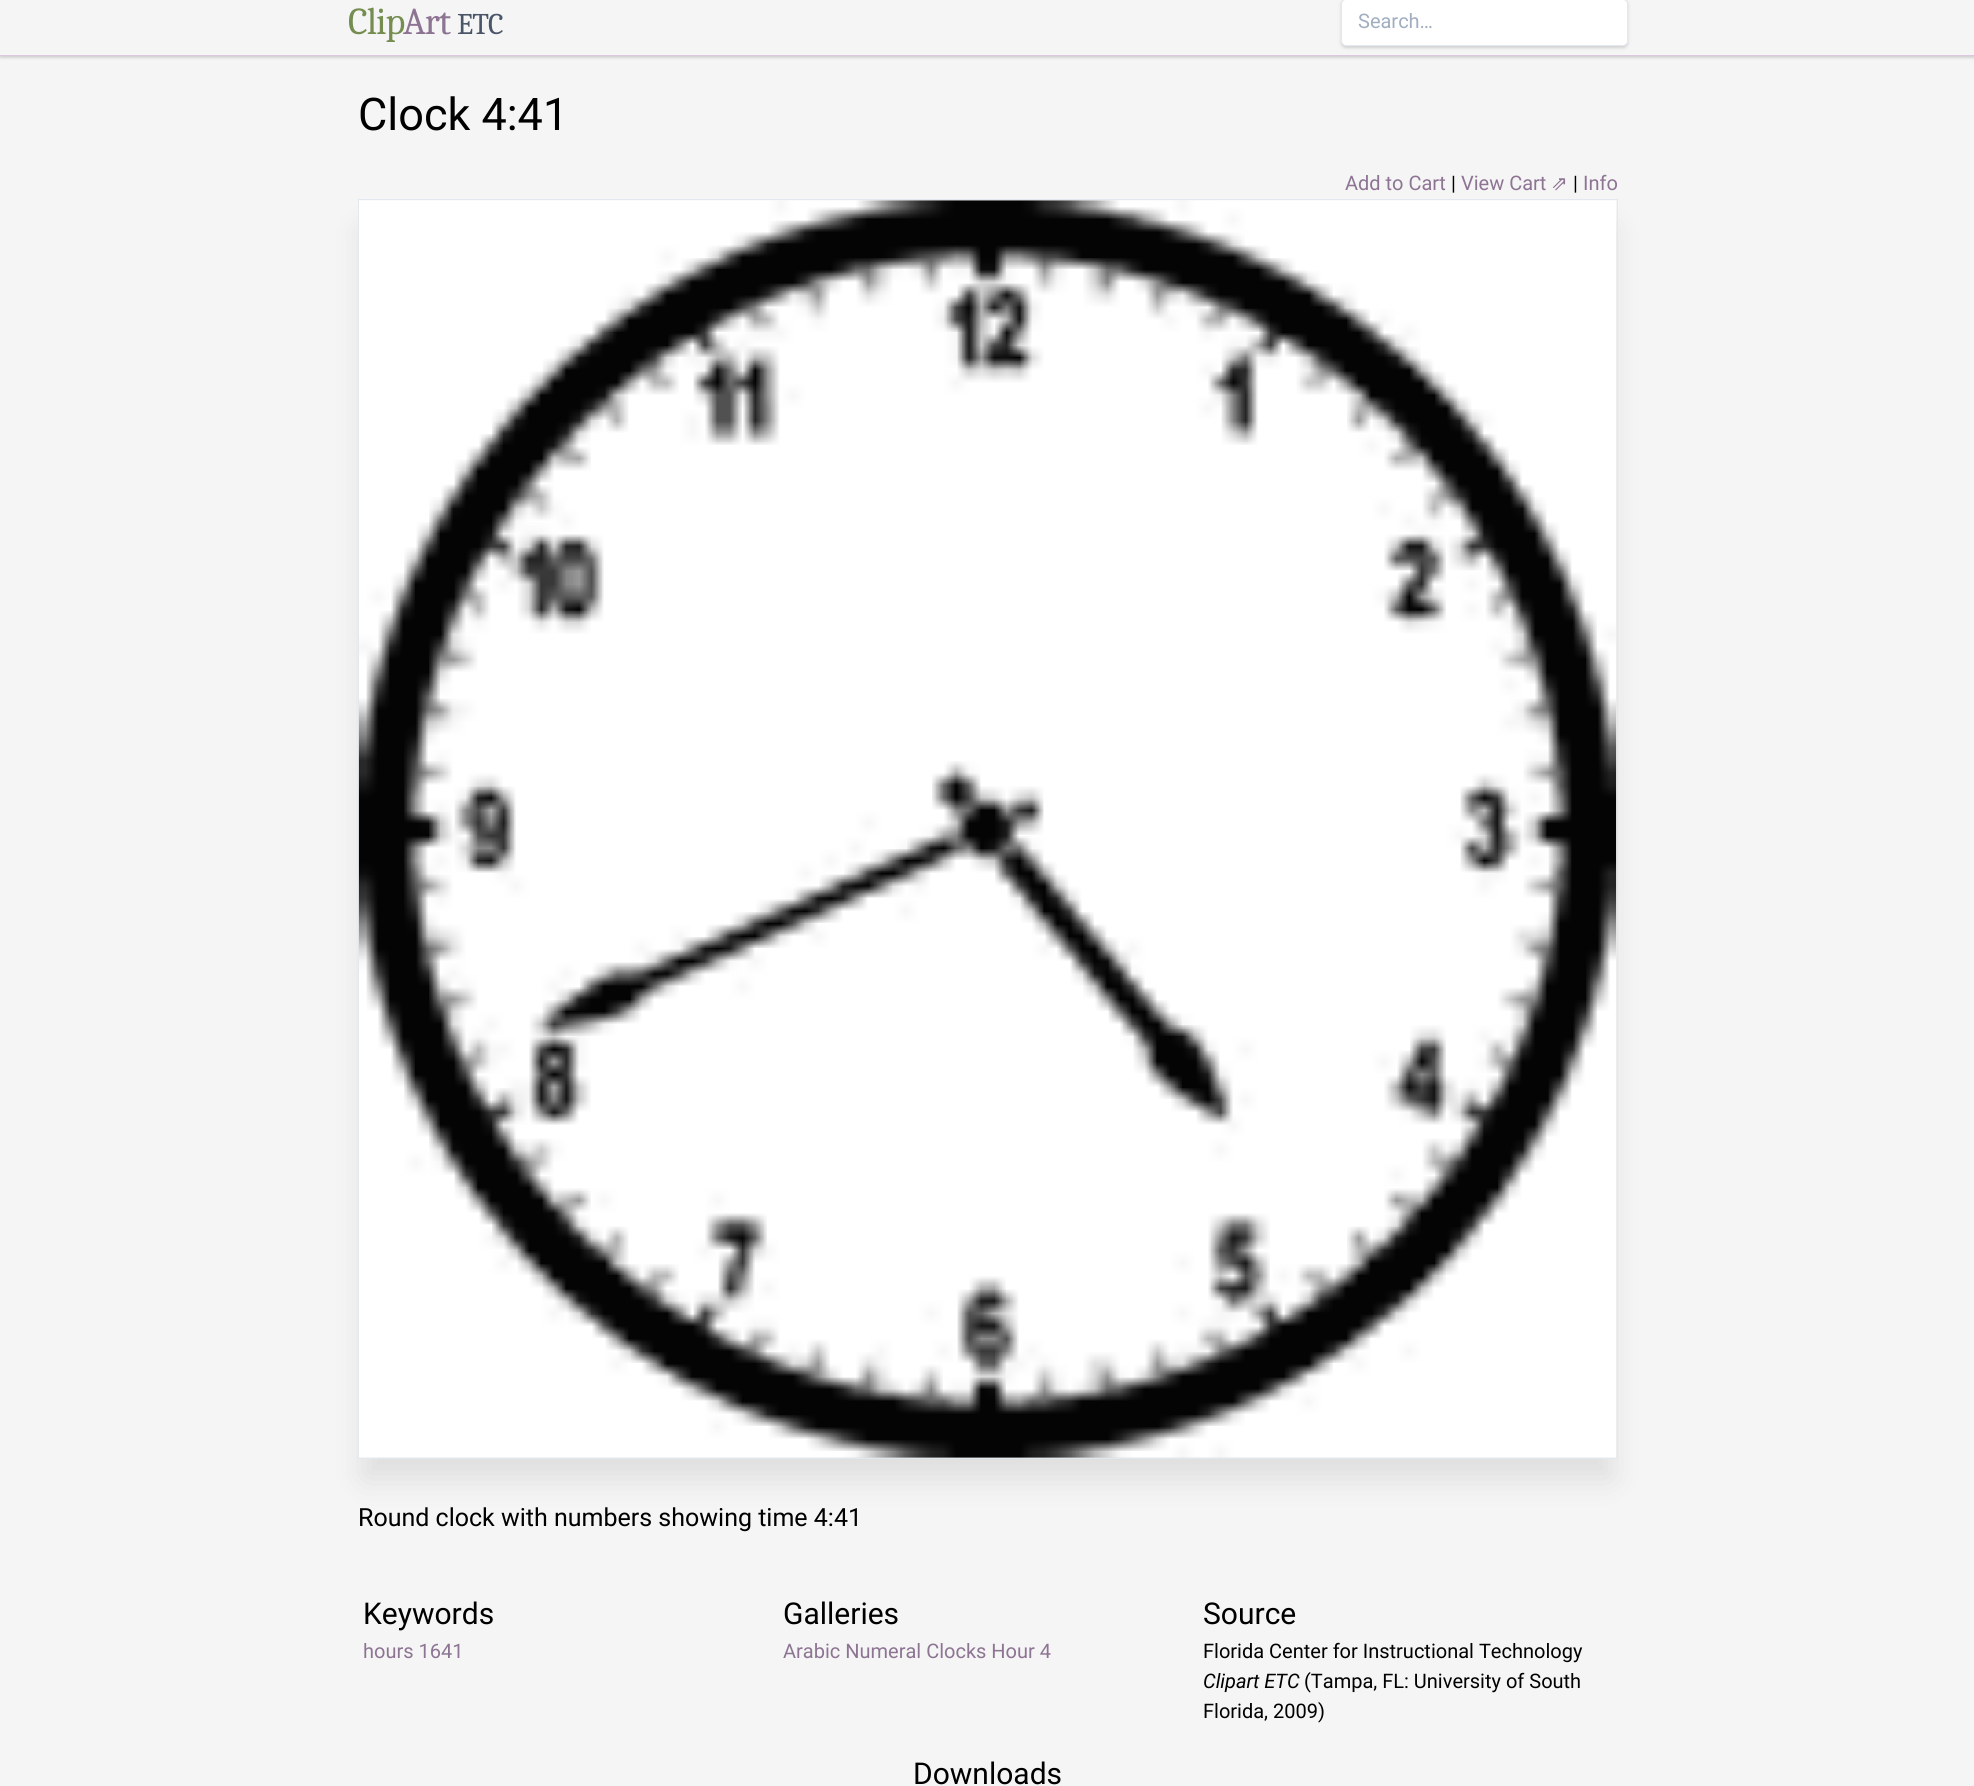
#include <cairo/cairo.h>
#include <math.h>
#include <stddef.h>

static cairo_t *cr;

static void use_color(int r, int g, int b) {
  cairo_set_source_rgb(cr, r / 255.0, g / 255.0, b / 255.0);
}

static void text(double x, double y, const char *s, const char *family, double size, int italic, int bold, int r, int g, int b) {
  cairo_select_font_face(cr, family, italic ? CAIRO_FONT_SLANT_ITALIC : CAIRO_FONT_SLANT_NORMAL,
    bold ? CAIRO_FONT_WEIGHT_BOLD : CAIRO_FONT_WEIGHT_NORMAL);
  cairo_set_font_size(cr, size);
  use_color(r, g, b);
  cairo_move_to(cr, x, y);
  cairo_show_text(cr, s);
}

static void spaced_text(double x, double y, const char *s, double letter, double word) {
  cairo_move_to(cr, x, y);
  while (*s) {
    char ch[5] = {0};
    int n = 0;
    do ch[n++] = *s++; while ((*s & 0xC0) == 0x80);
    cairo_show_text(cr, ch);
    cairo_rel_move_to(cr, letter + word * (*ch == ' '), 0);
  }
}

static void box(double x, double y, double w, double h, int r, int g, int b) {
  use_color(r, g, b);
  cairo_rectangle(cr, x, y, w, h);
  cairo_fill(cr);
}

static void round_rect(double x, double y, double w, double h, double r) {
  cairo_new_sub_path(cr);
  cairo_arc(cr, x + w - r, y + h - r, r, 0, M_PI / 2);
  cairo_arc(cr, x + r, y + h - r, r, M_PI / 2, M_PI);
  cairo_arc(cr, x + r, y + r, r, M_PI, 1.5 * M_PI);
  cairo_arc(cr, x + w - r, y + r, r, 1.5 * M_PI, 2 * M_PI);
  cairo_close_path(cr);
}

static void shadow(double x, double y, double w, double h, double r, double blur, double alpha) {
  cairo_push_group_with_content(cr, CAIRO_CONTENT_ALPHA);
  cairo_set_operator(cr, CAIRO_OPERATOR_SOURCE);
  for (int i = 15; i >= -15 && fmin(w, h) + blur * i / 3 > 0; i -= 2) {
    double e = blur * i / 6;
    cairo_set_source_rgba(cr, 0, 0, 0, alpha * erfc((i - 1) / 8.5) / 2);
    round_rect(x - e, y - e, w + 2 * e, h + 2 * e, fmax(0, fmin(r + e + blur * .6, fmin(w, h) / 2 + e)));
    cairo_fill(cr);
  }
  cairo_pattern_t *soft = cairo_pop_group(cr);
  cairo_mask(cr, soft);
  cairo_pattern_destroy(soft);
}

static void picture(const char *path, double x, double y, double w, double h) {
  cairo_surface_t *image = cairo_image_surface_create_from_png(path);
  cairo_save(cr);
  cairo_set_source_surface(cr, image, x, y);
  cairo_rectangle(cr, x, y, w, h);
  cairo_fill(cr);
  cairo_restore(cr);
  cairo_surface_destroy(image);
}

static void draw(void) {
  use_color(245, 245, 245);
  cairo_paint(cr);
  cairo_save(cr);
  cairo_rectangle(cr, 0, 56, 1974, 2);
  cairo_clip(cr);
  use_color(0, 0, 0);
  shadow(0, -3, 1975, 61, 0, 1, 0.06);
  cairo_restore(cr);
  cairo_save(cr);
  cairo_rectangle(cr, 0, 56, 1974, 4);
  cairo_clip(cr);
  use_color(0, 0, 0);
  shadow(0, -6, 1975, 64, 0, 2, 0.1);
  cairo_restore(cr);
  box(0, 55, 1974, 1, 219, 200, 224);
  use_color(0, 0, 0);
  shadow(1341, 0, 287, 48, 5, 1, 0.06);
  shadow(1341, 0, 287, 48, 5, 2, 0.1);
  use_color(255, 255, 255);
  round_rect(1341.5, -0.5, 286, 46, 4.5);
  cairo_fill_preserve(cr);
  use_color(226, 232, 240);
  cairo_set_line_width(cr, 1);
  cairo_stroke(cr);
  use_color(0, 0, 0);
  shadow(364, 230, 1247, 1248, 0, 15.5, 0.1);
  cairo_rectangle(cr, 358.5, 199.5, 1259, 1259);
  use_color(226, 232, 240);
  cairo_stroke(cr);
  picture("img_01.png", 358, 200, 1259, 1258);
  cairo_select_font_face(cr, "Caladea", CAIRO_FONT_SLANT_NORMAL, CAIRO_FONT_WEIGHT_NORMAL);
  cairo_set_font_size(cr, 38);
  use_color(117, 141, 80);
  spaced_text(348, 34, "Clip", -1, 0);
  use_color(141, 116, 147);
  spaced_text(403, 34, "Art", -1, 0);
  cairo_set_font_size(cr, 30);
  use_color(74, 85, 104);
  spaced_text(457, 34, "ETC", -1, 0);
  text(1358, 28, "Search…", "Roboto", 20, 0, 0, 160, 174, 192);
  text(358, 130, "Clock 4:41", "Roboto", 45, 0, 0, 0, 0, 0);
  text(1345, 190, "Add to Cart", "Roboto", 20, 0, 0, 141, 116, 147);
  text(1451, 190, "|", "Roboto", 20, 0, 0, 0, 0, 0);
  text(1461, 190, "View Cart", "Roboto", 20, 0, 0, 141, 116, 147);
  text(1551, 190, "⇗", "DejaVu Sans", 20, 0, 0, 141, 116, 147);
  text(1573, 190, "|", "Roboto", 20, 0, 0, 0, 0, 0);
  text(1583, 190, "Info", "Roboto", 20, 0, 0, 141, 116, 147);
  text(358, 1526, "Round clock with numbers showing time 4:41", "Roboto", 25, 0, 0, 0, 0, 0);
  text(363, 1624, "Keywords", "Roboto", 30, 0, 0, 0, 0, 0);
  text(363, 1658, "hours 1641", "Roboto", 20, 0, 0, 141, 116, 147);
  text(783, 1624, "Galleries", "Roboto", 30, 0, 0, 0, 0, 0);
  text(783, 1658, "Arabic Numeral Clocks Hour 4", "Roboto", 20, 0, 0, 141, 116, 147);
  text(1203, 1624, "Source", "Roboto", 30, 0, 0, 0, 0, 0);
  text(1203, 1658, "Florida Center for Instructional Technology", "Roboto", 20, 0, 0, 0, 0, 0);
  text(1203, 1688, "Clipart ETC", "Roboto", 20, 1, 0, 0, 0, 0);
  text(1304, 1688, "(Tampa, FL: University of South", "Roboto", 20, 0, 0, 0, 0, 0);
  text(1203, 1718, "Florida, 2009)", "Roboto", 20, 0, 0, 0, 0, 0);
  text(913, 1784, "Downloads", "Roboto", 30, 0, 0, 0, 0, 0);
}

int main(void) {
  cairo_surface_t *surface = cairo_image_surface_create(CAIRO_FORMAT_RGB24, 1974, 1786);
  cr = cairo_create(surface);
  cairo_font_options_t *options = cairo_font_options_create();
  cairo_font_options_set_hint_metrics(options, CAIRO_HINT_METRICS_OFF);
  cairo_font_options_set_hint_style(options, CAIRO_HINT_STYLE_NONE);
  cairo_set_font_options(cr, options);
  cairo_set_miter_limit(cr, 4);
  draw();
  cairo_surface_write_to_png(surface, "out.png");
  cairo_font_options_destroy(options);
  cairo_destroy(cr);
  cairo_surface_destroy(surface);
  return 0;
}
